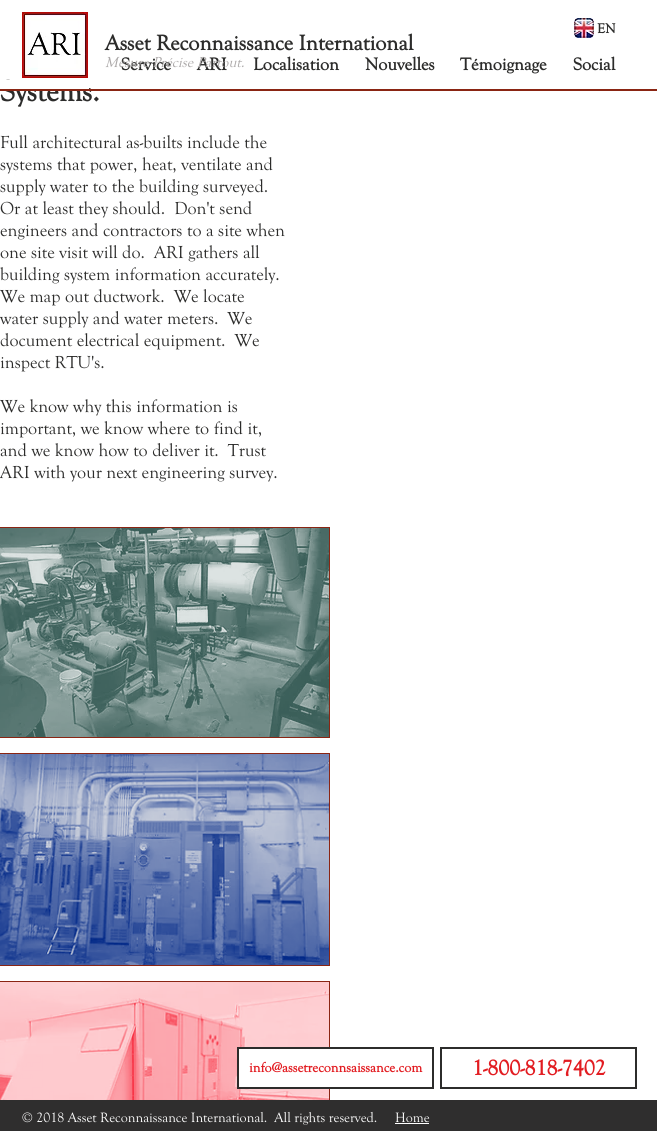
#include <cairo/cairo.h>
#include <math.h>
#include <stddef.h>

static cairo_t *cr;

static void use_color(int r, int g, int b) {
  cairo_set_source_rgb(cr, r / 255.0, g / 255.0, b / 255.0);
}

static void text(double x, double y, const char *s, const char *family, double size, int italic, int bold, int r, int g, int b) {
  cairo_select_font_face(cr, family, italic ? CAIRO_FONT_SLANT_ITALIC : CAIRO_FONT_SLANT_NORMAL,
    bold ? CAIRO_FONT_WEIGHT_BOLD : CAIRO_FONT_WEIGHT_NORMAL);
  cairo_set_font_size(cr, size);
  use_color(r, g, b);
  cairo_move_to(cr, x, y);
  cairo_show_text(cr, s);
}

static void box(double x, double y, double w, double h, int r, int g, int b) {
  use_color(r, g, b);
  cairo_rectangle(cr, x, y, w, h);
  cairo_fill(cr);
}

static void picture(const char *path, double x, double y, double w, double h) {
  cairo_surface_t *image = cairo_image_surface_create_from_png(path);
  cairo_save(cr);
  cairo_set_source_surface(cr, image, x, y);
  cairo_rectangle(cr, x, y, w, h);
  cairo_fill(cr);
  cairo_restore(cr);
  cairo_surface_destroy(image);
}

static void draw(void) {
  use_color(255, 255, 255);
  cairo_paint(cr);
  picture("img_01.png", 574, 18, 20, 20);
  picture("img_02.png", 22, 12, 66, 66);
  box(0, 527, 330, 211, 138, 37, 19);
  picture("img_03.png", 0, 528, 329, 209);
  box(0, 753, 330, 213, 138, 37, 19);
  picture("img_04.png", 0, 754, 329, 211);
  box(0, 981, 330, 119, 138, 37, 19);
  picture("img_05.png", 0, 982, 329, 118);
  box(239, 1049, 91, 38, 255, 255, 255);
  cairo_rectangle(cr, 238, 1048, 195, 40);
  use_color(44, 44, 43);
  cairo_stroke(cr);
  cairo_rectangle(cr, 441, 1048, 195, 40);
  cairo_stroke(cr);
  box(0, 1100, 657, 31, 47, 46, 46);
  box(395, 1123, 34, 1, 255, 255, 255);
  text(597, 33, "EN", "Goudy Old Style", 14, 0, 1, 44, 44, 43);
  text(121, 70, "Service", "Goudy Old Style", 18, 0, 1, 44, 44, 43);
  text(197, 70, "ARI", "Goudy Old Style", 18, 0, 1, 44, 44, 43);
  text(253, 70, "Localisation", "Goudy Old Style", 18, 0, 1, 44, 44, 43);
  text(365, 70, "Nouvelles", "Goudy Old Style", 18, 0, 1, 44, 44, 43);
  text(460, 70, "Témoignage", "Goudy Old Style", 18, 0, 1, 44, 44, 43);
  text(573, 70, "Social", "Goudy Old Style", 18, 0, 1, 44, 44, 43);
  text(105, 50, "Asset Reconnaissance International", "Goudy Old Style", 22, 0, 1, 44, 44, 43);
  text(105, 67, "Mesure Précise Partout.", "Goudy Old Style", 15, 1, 0, 172, 169, 169);
  text(0, 101, "Systems.", "Goudy Old Style", 30, 0, 1, 44, 44, 43);
  text(0, 148, "Full architectural as-builts include the", "Goudy Old Style", 18, 0, 0, 44, 44, 43);
  text(0, 170, "systems that power, heat, ventilate and", "Goudy Old Style", 18, 0, 0, 44, 44, 43);
  text(0, 192, "supply water to the building surveyed.", "Goudy Old Style", 18, 0, 0, 44, 44, 43);
  text(0, 214, "Or at least they should.  Don't send", "Goudy Old Style", 18, 0, 0, 44, 44, 43);
  text(0, 236, "engineers and contractors to a site when", "Goudy Old Style", 18, 0, 0, 44, 44, 43);
  text(0, 258, "one site visit will do.  ARI gathers all", "Goudy Old Style", 18, 0, 0, 44, 44, 43);
  text(0, 280, "building system information accurately.", "Goudy Old Style", 18, 0, 0, 44, 44, 43);
  text(0, 302, "We map out ductwork.  We locate", "Goudy Old Style", 18, 0, 0, 44, 44, 43);
  text(0, 324, "water supply and water meters.  We", "Goudy Old Style", 18, 0, 0, 44, 44, 43);
  text(0, 346, "document electrical equipment.  We", "Goudy Old Style", 18, 0, 0, 44, 44, 43);
  text(0, 368, "inspect RTU's.", "Goudy Old Style", 18, 0, 0, 44, 44, 43);
  text(0, 412, "We know why this information is", "Goudy Old Style", 18, 0, 0, 44, 44, 43);
  text(0, 434, "important, we know where to find it,", "Goudy Old Style", 18, 0, 0, 44, 44, 43);
  text(0, 456, "and we know how to deliver it.  Trust", "Goudy Old Style", 18, 0, 0, 44, 44, 43);
  text(0, 478, "ARI with your next engineering survey.", "Goudy Old Style", 18, 0, 0, 44, 44, 43);
  box(1, 80, 88, 9, 255, 255, 255);
  box(0, 89, 657, 2, 138, 37, 19);
  text(249, 1072, "info@assetreconnsaissance.com", "Goudy Old Style", 14, 0, 1, 226, 28, 33);
  text(472, 1075, "1-800-818-7402", "Goudy Old Style", 22, 0, 1, 226, 28, 33);
  text(22, 1122, "© 2018 Asset Reconnaissance International.  All rights reserved.", "Goudy Old Style", 14, 0, 0, 255, 255, 255);
  text(395, 1122, "Home", "Goudy Old Style", 14, 0, 0, 255, 255, 255);
}

int main(void) {
  cairo_surface_t *surface = cairo_image_surface_create(CAIRO_FORMAT_RGB24, 657, 1131);
  cr = cairo_create(surface);
  cairo_font_options_t *options = cairo_font_options_create();
  cairo_font_options_set_hint_metrics(options, CAIRO_HINT_METRICS_OFF);
  cairo_font_options_set_hint_style(options, CAIRO_HINT_STYLE_NONE);
  cairo_set_font_options(cr, options);
  cairo_set_miter_limit(cr, 4);
  draw();
  cairo_surface_write_to_png(surface, "out.png");
  cairo_font_options_destroy(options);
  cairo_destroy(cr);
  cairo_surface_destroy(surface);
  return 0;
}
